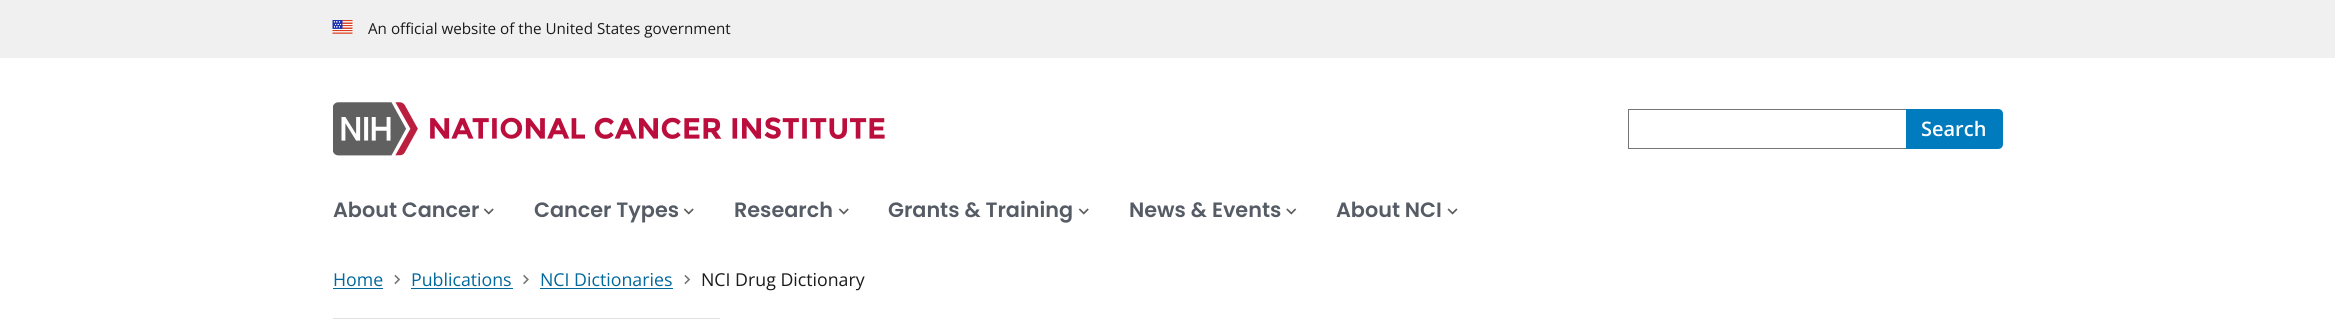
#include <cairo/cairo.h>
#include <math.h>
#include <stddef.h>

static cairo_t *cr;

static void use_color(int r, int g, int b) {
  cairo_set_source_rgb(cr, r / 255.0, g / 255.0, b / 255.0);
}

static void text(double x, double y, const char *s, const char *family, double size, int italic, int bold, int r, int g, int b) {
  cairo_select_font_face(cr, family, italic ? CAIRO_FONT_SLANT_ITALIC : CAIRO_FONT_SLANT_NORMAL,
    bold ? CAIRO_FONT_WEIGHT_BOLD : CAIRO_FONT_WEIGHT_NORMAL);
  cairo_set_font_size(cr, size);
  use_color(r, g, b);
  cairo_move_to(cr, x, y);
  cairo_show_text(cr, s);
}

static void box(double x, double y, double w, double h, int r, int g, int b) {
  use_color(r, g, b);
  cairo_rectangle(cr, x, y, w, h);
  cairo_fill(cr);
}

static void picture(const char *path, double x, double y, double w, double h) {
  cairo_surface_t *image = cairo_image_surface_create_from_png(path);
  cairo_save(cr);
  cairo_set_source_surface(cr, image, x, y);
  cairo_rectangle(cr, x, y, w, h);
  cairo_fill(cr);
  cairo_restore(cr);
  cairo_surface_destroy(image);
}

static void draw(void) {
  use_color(255, 255, 255);
  cairo_paint(cr);
  box(0, 0, 2335, 58, 240, 240, 240);
  picture("img_01.png", 332, 20, 21, 14);
  picture("img_02.png", 333, 102, 552, 54);
  box(1628, 109, 278, 1, 117, 117, 117);
  box(1628, 148, 278, 1, 117, 117, 117);
  box(1628, 109, 1, 40, 117, 117, 117);
  use_color(0, 123, 189);
  cairo_new_path(cr);
  cairo_move_to(cr, 1906, 109);
  cairo_line_to(cr, 1998, 109);
  cairo_curve_to(cr, 2001, 109, 2003, 111, 2003, 114);
  cairo_line_to(cr, 2003, 144);
  cairo_curve_to(cr, 2003, 147, 2001, 149, 1998, 149);
  cairo_line_to(cr, 1906, 149);
  cairo_close_path(cr);
  cairo_fill(cr);
  picture("img_03.png", 483, 208, 11, 7);
  picture("img_03.png", 683, 208, 11, 7);
  picture("img_03.png", 838, 208, 11, 7);
  picture("img_03.png", 1078, 208, 11, 7);
  picture("img_04.png", 1286, 208, 11, 7);
  picture("img_05.png", 1447, 208, 11, 7);
  box(333, 288, 50, 1, 1, 103, 157);
  picture("img_06.png", 394, 274, 7, 11);
  box(411, 288, 102, 1, 1, 103, 157);
  picture("img_07.png", 523, 274, 6, 11);
  box(540, 288, 133, 1, 1, 103, 157);
  picture("img_06.png", 684, 274, 7, 11);
  box(333, 318, 387, 1, 223, 225, 226);
  text(368, 34, "An official website of the United States government", "Open Sans", 15.2, 0, 0, 27, 27, 27);
  text(1921, 136, "Search", "Open Sans SemiBold", 20, 0, 0, 255, 255, 255);
  text(333, 217, "About Cancer", "Poppins SemiBold", 20.75, 0, 0, 86, 92, 101);
  text(534, 217, "Cancer Types", "Poppins SemiBold", 20.75, 0, 0, 86, 92, 101);
  text(734, 217, "Research", "Poppins SemiBold", 20.75, 0, 0, 86, 92, 101);
  text(888, 217, "Grants & Training", "Poppins SemiBold", 20.75, 0, 0, 86, 92, 101);
  text(1129, 217, "News & Events", "Poppins SemiBold", 20.75, 0, 0, 86, 92, 101);
  text(1336, 217, "About NCI", "Poppins SemiBold", 20.75, 0, 0, 86, 92, 101);
  text(333, 286, "Home", "Open Sans", 17.75, 0, 0, 1, 103, 157);
  text(411, 286, "Publications", "Open Sans", 17.75, 0, 0, 1, 103, 157);
  text(540, 286, "NCI Dictionaries", "Open Sans", 17.75, 0, 0, 1, 103, 157);
  text(701, 286, "NCI Drug Dictionary", "Open Sans", 17.75, 0, 0, 27, 27, 27);
}

int main(void) {
  cairo_surface_t *surface = cairo_image_surface_create(CAIRO_FORMAT_RGB24, 2335, 329);
  cr = cairo_create(surface);
  cairo_font_options_t *options = cairo_font_options_create();
  cairo_font_options_set_hint_metrics(options, CAIRO_HINT_METRICS_OFF);
  cairo_font_options_set_hint_style(options, CAIRO_HINT_STYLE_NONE);
  cairo_set_font_options(cr, options);
  cairo_set_miter_limit(cr, 4);
  draw();
  cairo_surface_write_to_png(surface, "out.png");
  cairo_font_options_destroy(options);
  cairo_destroy(cr);
  cairo_surface_destroy(surface);
  return 0;
}
